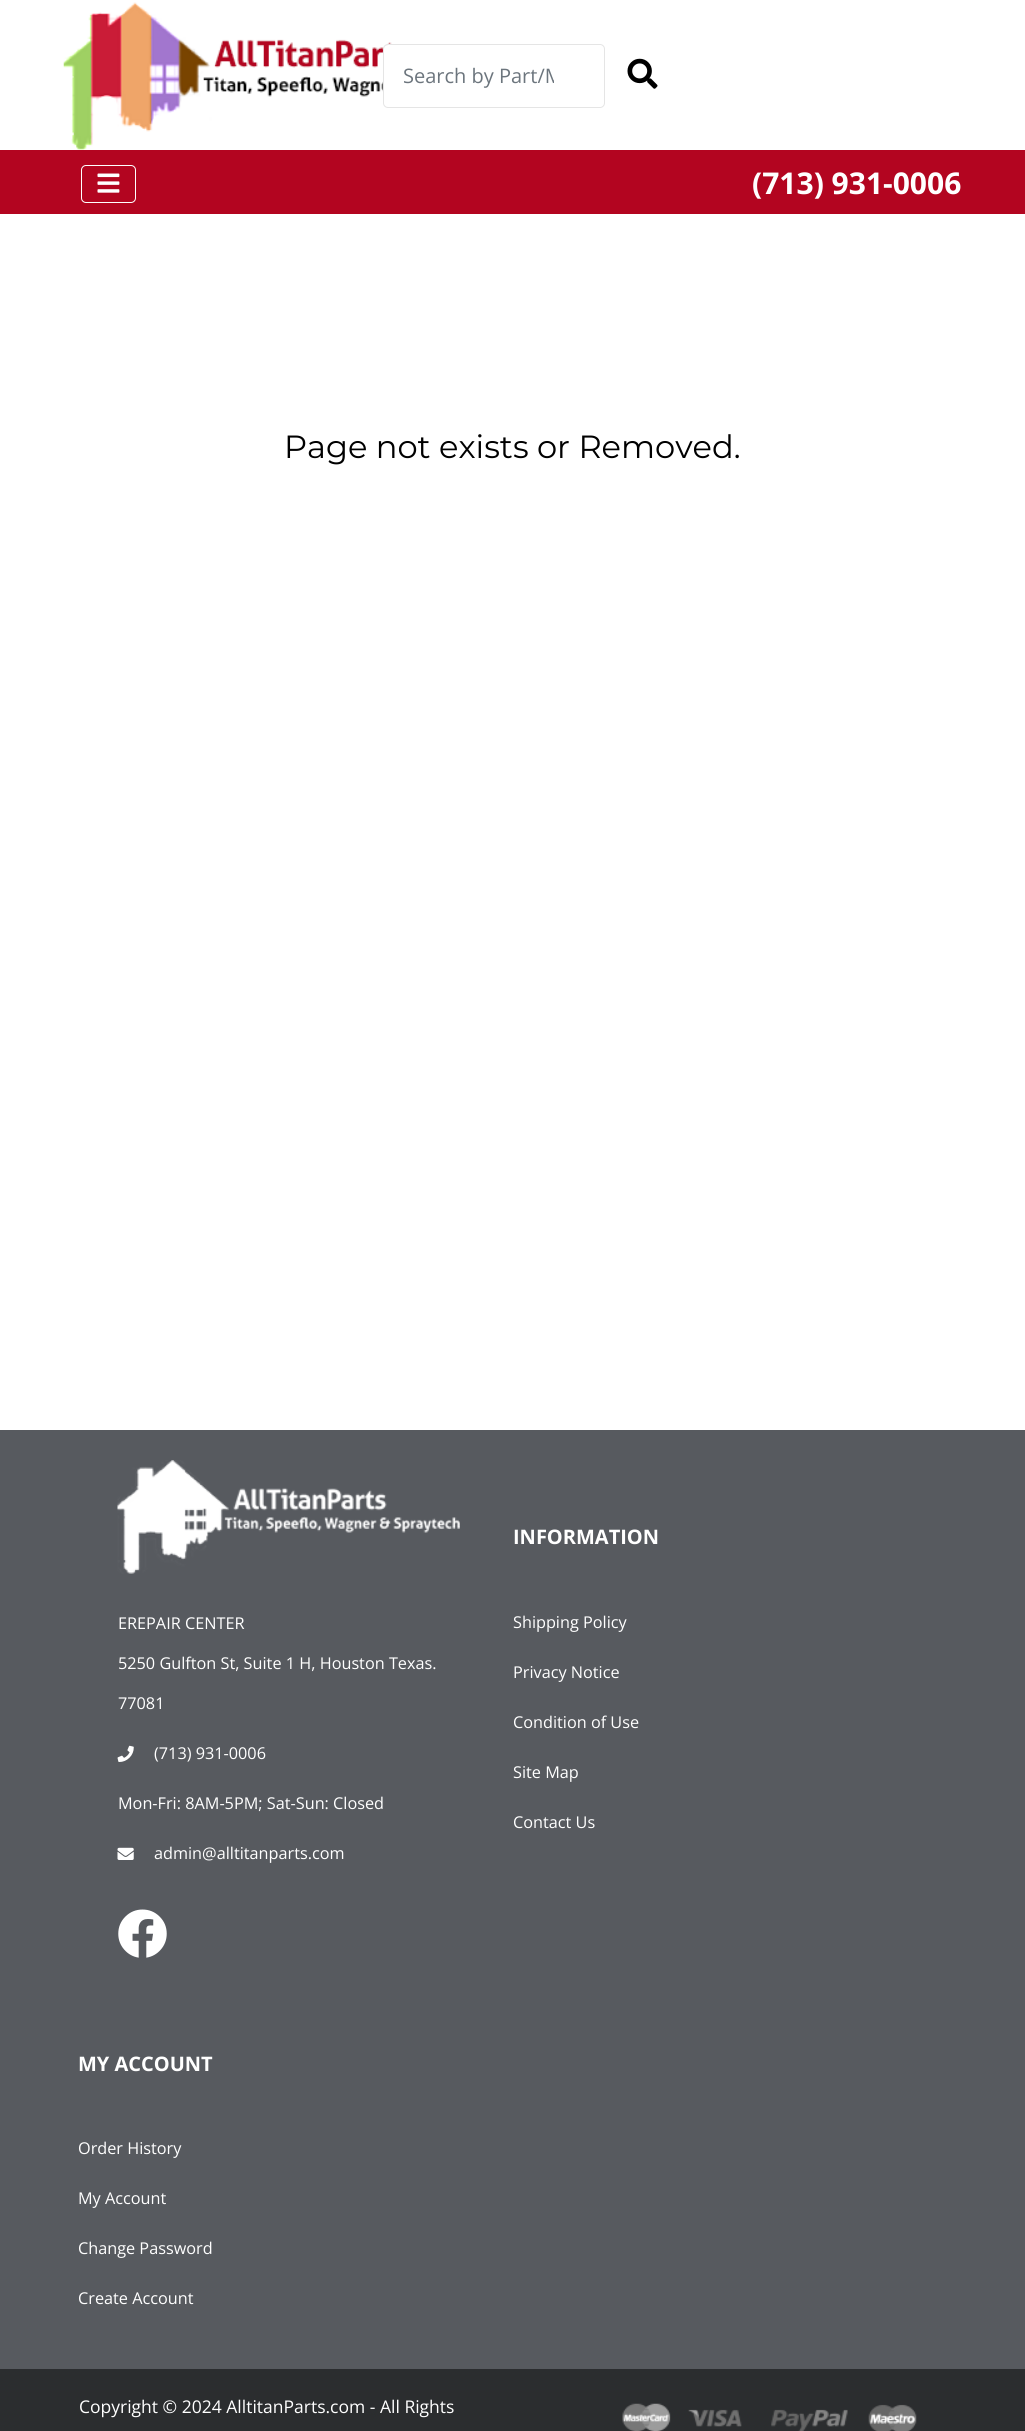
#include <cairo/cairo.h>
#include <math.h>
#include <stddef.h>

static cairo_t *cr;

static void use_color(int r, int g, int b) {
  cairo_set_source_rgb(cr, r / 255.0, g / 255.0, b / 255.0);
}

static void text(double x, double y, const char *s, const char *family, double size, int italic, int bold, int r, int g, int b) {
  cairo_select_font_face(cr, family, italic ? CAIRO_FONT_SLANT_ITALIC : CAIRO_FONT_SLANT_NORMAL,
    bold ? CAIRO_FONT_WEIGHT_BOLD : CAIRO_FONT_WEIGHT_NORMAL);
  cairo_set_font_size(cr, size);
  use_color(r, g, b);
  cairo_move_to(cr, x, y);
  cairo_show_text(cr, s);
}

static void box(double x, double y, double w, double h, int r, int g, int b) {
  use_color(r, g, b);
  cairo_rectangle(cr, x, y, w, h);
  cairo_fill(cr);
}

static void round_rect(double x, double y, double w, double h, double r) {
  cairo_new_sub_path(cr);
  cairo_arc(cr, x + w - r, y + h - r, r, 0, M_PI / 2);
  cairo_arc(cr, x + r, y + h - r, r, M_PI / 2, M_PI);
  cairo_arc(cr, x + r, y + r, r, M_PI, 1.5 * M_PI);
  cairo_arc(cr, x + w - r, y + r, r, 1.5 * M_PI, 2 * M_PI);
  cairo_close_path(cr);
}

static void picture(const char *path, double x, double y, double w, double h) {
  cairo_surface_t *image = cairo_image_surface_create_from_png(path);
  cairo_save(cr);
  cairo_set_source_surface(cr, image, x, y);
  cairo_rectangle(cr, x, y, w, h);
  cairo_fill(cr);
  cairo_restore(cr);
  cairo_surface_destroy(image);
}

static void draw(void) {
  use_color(255, 255, 255);
  cairo_paint(cr);
  picture("img_01.png", 63, 2, 445, 148);
  use_color(255, 255, 255);
  round_rect(384, 45, 220, 61, 4);
  cairo_fill(cr);
  round_rect(383.5, 44.5, 221, 63, 4.5);
  use_color(229, 229, 229);
  cairo_set_line_width(cr, 1);
  cairo_stroke(cr);
  picture("img_02.png", 627, 58, 31, 31);
  box(0, 150, 1025, 64, 179, 5, 32);
  round_rect(81.5, 165.5, 54, 37, 4.5);
  use_color(255, 255, 255);
  cairo_stroke(cr);
  picture("img_03.png", 97, 173, 23, 20);
  box(0, 1430, 1025, 939, 87, 90, 95);
  picture("img_04.png", 117, 1460, 343, 114);
  picture("img_05.png", 117, 1745, 17, 17);
  picture("img_06.png", 117, 1847, 17, 13);
  picture("img_07.png", 118, 1909, 49, 49);
  box(0, 2369, 1025, 62, 43, 45, 47);
  picture("img_08.png", 622, 2403, 295, 28);
  cairo_save(cr);
  cairo_rectangle(cr, 403, 61, 151, 28);
  cairo_clip(cr);
  text(403, 83, "Search by Part/M", "Open Sans", 20, 0, 0, 108, 117, 125);
  cairo_restore(cr);
  text(752, 194, "(713) 931-0006", "Open Sans", 30, 0, 1, 255, 255, 255);
  text(284, 458, "Page not exists or Removed.", "Montserrat", 32.1, 0, 0, 0, 0, 0);
  text(118, 1629, "EREPAIR CENTER", "Open Sans", 16.25, 0, 0, 255, 255, 255);
  text(118, 1669, "5250 Gulfton St, Suite 1 H, Houston Texas.", "Open Sans", 16.25, 0, 0, 255, 255, 255);
  text(118, 1709, "77081", "Open Sans", 16.25, 0, 0, 255, 255, 255);
  text(154, 1759, "(713) 931-0006", "Open Sans", 16.25, 0, 0, 255, 255, 255);
  text(118, 1809, "Mon-Fri: 8AM-5PM; Sat-Sun: Closed", "Open Sans", 16.25, 0, 0, 255, 255, 255);
  text(154, 1859, "admin@alltitanparts.com", "Open Sans", 16.25, 0, 0, 255, 255, 255);
  text(513, 1544, "INFORMATION", "Open Sans", 20, 0, 1, 255, 255, 255);
  text(513, 1628, "Shipping Policy", "Open Sans", 16.25, 0, 0, 255, 255, 255);
  text(513, 1678, "Privacy Notice", "Open Sans", 16.25, 0, 0, 255, 255, 255);
  text(513, 1728, "Condition of Use", "Open Sans", 16.25, 0, 0, 255, 255, 255);
  text(513, 1778, "Site Map", "Open Sans", 16.25, 0, 0, 255, 255, 255);
  text(513, 1828, "Contact Us", "Open Sans", 16.25, 0, 0, 255, 255, 255);
  text(78, 2071, "MY ACCOUNT", "Open Sans", 20, 0, 1, 255, 255, 255);
  text(78, 2154, "Order History", "Open Sans", 16.25, 0, 0, 255, 255, 255);
  text(78, 2204, "My Account", "Open Sans", 16.25, 0, 0, 255, 255, 255);
  text(78, 2254, "Change Password", "Open Sans", 16.25, 0, 0, 255, 255, 255);
  text(78, 2304, "Create Account", "Open Sans", 16.25, 0, 0, 255, 255, 255);
  text(79, 2413, "Copyright © 2024 AlltitanParts.com - All Rights", "Open Sans", 17.5, 0, 0, 255, 255, 255);
}

int main(void) {
  cairo_surface_t *surface = cairo_image_surface_create(CAIRO_FORMAT_RGB24, 1025, 2431);
  cr = cairo_create(surface);
  cairo_font_options_t *options = cairo_font_options_create();
  cairo_font_options_set_hint_metrics(options, CAIRO_HINT_METRICS_OFF);
  cairo_font_options_set_hint_style(options, CAIRO_HINT_STYLE_NONE);
  cairo_set_font_options(cr, options);
  cairo_set_miter_limit(cr, 4);
  draw();
  cairo_surface_write_to_png(surface, "out.png");
  cairo_font_options_destroy(options);
  cairo_destroy(cr);
  cairo_surface_destroy(surface);
  return 0;
}
